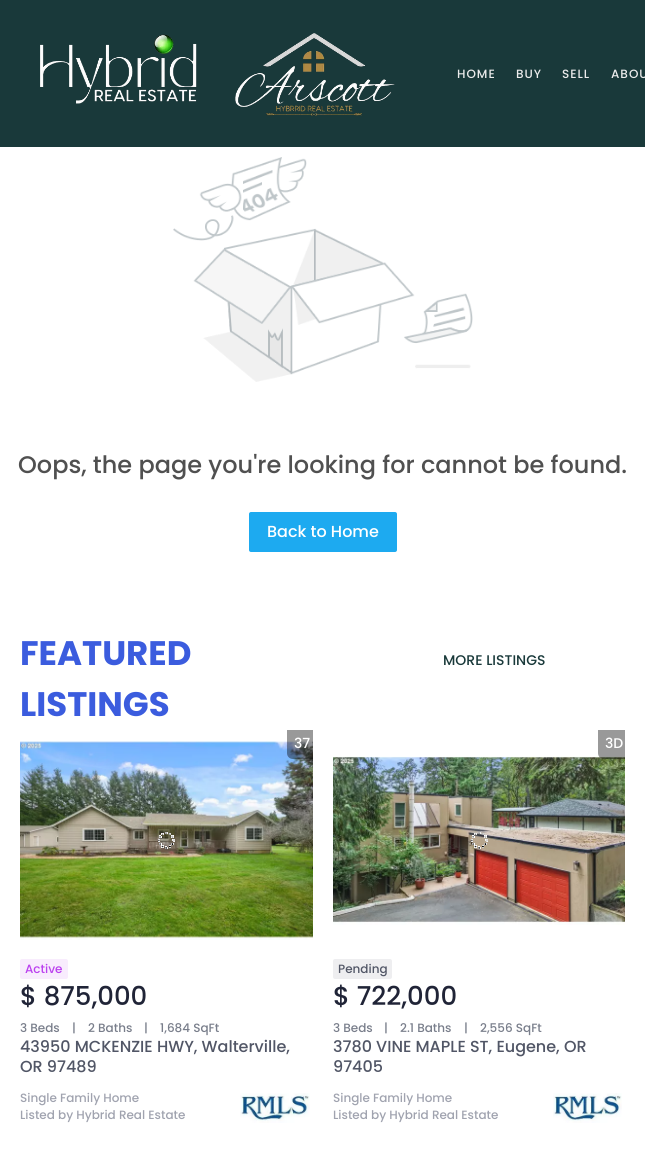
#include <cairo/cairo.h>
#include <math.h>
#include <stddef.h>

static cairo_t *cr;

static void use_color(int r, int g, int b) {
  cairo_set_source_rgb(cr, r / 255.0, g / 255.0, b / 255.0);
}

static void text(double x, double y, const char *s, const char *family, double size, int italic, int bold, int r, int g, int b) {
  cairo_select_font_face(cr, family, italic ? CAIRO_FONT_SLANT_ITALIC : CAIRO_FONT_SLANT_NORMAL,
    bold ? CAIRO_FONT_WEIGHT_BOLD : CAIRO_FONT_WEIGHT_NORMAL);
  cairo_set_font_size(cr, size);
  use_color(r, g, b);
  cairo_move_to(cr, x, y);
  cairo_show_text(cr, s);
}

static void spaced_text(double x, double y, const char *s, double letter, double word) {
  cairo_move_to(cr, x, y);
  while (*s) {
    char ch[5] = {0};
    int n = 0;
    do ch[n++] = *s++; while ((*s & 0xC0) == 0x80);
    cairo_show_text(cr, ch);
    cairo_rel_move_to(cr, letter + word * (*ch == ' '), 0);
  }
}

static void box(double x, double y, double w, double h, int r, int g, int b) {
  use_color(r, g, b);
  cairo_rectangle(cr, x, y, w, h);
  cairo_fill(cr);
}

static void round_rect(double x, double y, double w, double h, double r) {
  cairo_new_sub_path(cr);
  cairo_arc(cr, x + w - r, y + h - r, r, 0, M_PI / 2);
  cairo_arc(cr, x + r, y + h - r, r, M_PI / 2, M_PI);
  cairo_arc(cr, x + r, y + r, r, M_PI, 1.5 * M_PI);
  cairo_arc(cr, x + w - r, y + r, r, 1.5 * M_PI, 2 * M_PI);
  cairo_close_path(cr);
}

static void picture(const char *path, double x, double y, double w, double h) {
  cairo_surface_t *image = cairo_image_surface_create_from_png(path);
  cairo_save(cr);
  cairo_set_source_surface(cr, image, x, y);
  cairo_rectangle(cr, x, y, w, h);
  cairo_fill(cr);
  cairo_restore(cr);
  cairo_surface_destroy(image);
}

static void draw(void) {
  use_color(255, 255, 255);
  cairo_paint(cr);
  box(0, 0, 645, 147, 25, 57, 58);
  picture("img_01.png", 40, 34, 157, 70);
  picture("img_02.png", 235, 33, 160, 83);
  picture("img_03.png", 173, 157, 300, 225);
  use_color(29, 170, 240);
  round_rect(249, 512, 148, 40, 2);
  cairo_fill(cr);
  picture("img_04.png", 20, 741, 293, 199);
  cairo_set_source_rgba(cr, 0, 0, 0, 0.4);
  cairo_new_path(cr);
  cairo_move_to(cr, 287, 730);
  cairo_line_to(cr, 313, 730);
  cairo_line_to(cr, 313, 759);
  cairo_line_to(cr, 293, 759);
  cairo_curve_to(cr, 289.5, 759, 287, 756.5, 287, 753);
  cairo_close_path(cr);
  cairo_fill(cr);
  picture("img_05.png", 158, 832, 17, 17);
  use_color(248, 236, 253);
  round_rect(20, 959, 48, 20, 2);
  cairo_fill(cr);
  picture("img_06.png", 240, 1093, 70, 30);
  picture("img_07.png", 333, 756, 292, 169);
  cairo_set_source_rgba(cr, 0, 0, 0, 0.4);
  cairo_new_path(cr);
  cairo_move_to(cr, 598, 730);
  cairo_line_to(cr, 625, 730);
  cairo_line_to(cr, 625, 759);
  cairo_line_to(cr, 604, 759);
  cairo_curve_to(cr, 600.5, 759, 598, 756.5, 598, 753);
  cairo_close_path(cr);
  cairo_fill(cr);
  picture("img_08.png", 471, 832, 17, 17);
  use_color(238, 238, 240);
  round_rect(333, 959, 59, 20, 2);
  cairo_fill(cr);
  picture("img_09.png", 553, 1093, 69, 30);
  cairo_select_font_face(cr, "Poppins Medium", CAIRO_FONT_SLANT_NORMAL, CAIRO_FONT_WEIGHT_NORMAL);
  cairo_set_font_size(cr, 12);
  use_color(236, 236, 236);
  spaced_text(457, 78, "HOME", 1, 0);
  spaced_text(516, 78, "BUY", 1, 0);
  spaced_text(562, 78, "SELL", 1, 0);
  spaced_text(611, 78, "ABOU", 1, 0);
  text(18, 473, "Oops, the page you're looking for cannot be found.", "Poppins Medium", 24, 0, 0, 80, 80, 80);
  text(267, 537, "Back to Home", "Poppins Medium", 16, 0, 0, 255, 255, 255);
  text(20, 665, "FEATURED", "Poppins", 34, 0, 1, 59, 92, 222);
  text(20, 716, "LISTINGS", "Poppins", 34, 0, 1, 59, 92, 222);
  text(443, 665, "MORE LISTINGS", "Poppins Medium", 14, 0, 0, 25, 57, 58);
  text(294, 748, "37", "Poppins Medium", 14, 0, 0, 255, 255, 255);
  text(25, 973, "Active", "Poppins Medium", 12, 0, 0, 187, 64, 239);
  text(20, 1005, "$ 875,000", "Poppins Medium", 26, 0, 0, 32, 36, 55);
  text(20, 1032, "3 Beds", "Poppins Medium", 12, 0, 0, 121, 126, 139);
  text(72, 1032, "|", "Poppins Medium", 12, 0, 0, 121, 126, 139);
  text(88, 1032, "2 Baths", "Poppins Medium", 12, 0, 0, 121, 126, 139);
  text(144, 1032, "|", "Poppins Medium", 12, 0, 0, 121, 126, 139);
  text(160, 1032, "1,684 SqFt", "Poppins Medium", 12, 0, 0, 121, 126, 139);
  text(20, 1052, "43950 MCKENZIE HWY, Walterville,", "Poppins Medium", 16, 0, 0, 81, 86, 102);
  text(20, 1072, "OR 97489", "Poppins Medium", 16, 0, 0, 81, 86, 102);
  text(20, 1102, "Single Family Home", "Poppins Medium", 12, 0, 0, 160, 163, 175);
  text(20, 1119, "Listed by Hybrid Real Estate", "Poppins Medium", 12, 0, 0, 160, 163, 175);
  text(605, 748, "3D", "Poppins Medium", 14, 0, 0, 255, 255, 255);
  text(338, 973, "Pending", "Poppins Medium", 12, 0, 0, 81, 86, 102);
  text(333, 1005, "$ 722,000", "Poppins Medium", 26, 0, 0, 32, 36, 55);
  text(333, 1032, "3 Beds", "Poppins Medium", 12, 0, 0, 121, 126, 139);
  text(384, 1032, "|", "Poppins Medium", 12, 0, 0, 121, 126, 139);
  text(400, 1032, "2.1 Baths", "Poppins Medium", 12, 0, 0, 121, 126, 139);
  text(464, 1032, "|", "Poppins Medium", 12, 0, 0, 121, 126, 139);
  text(480, 1032, "2,556 SqFt", "Poppins Medium", 12, 0, 0, 121, 126, 139);
  text(333, 1052, "3780 VINE MAPLE ST, Eugene, OR", "Poppins Medium", 16, 0, 0, 81, 86, 102);
  text(333, 1072, "97405", "Poppins Medium", 16, 0, 0, 81, 86, 102);
  text(333, 1102, "Single Family Home", "Poppins Medium", 12, 0, 0, 160, 163, 175);
  text(333, 1119, "Listed by Hybrid Real Estate", "Poppins Medium", 12, 0, 0, 160, 163, 175);
}

int main(void) {
  cairo_surface_t *surface = cairo_image_surface_create(CAIRO_FORMAT_RGB24, 645, 1150);
  cr = cairo_create(surface);
  cairo_font_options_t *options = cairo_font_options_create();
  cairo_font_options_set_hint_metrics(options, CAIRO_HINT_METRICS_OFF);
  cairo_font_options_set_hint_style(options, CAIRO_HINT_STYLE_NONE);
  cairo_set_font_options(cr, options);
  cairo_set_miter_limit(cr, 4);
  draw();
  cairo_surface_write_to_png(surface, "out.png");
  cairo_font_options_destroy(options);
  cairo_destroy(cr);
  cairo_surface_destroy(surface);
  return 0;
}
